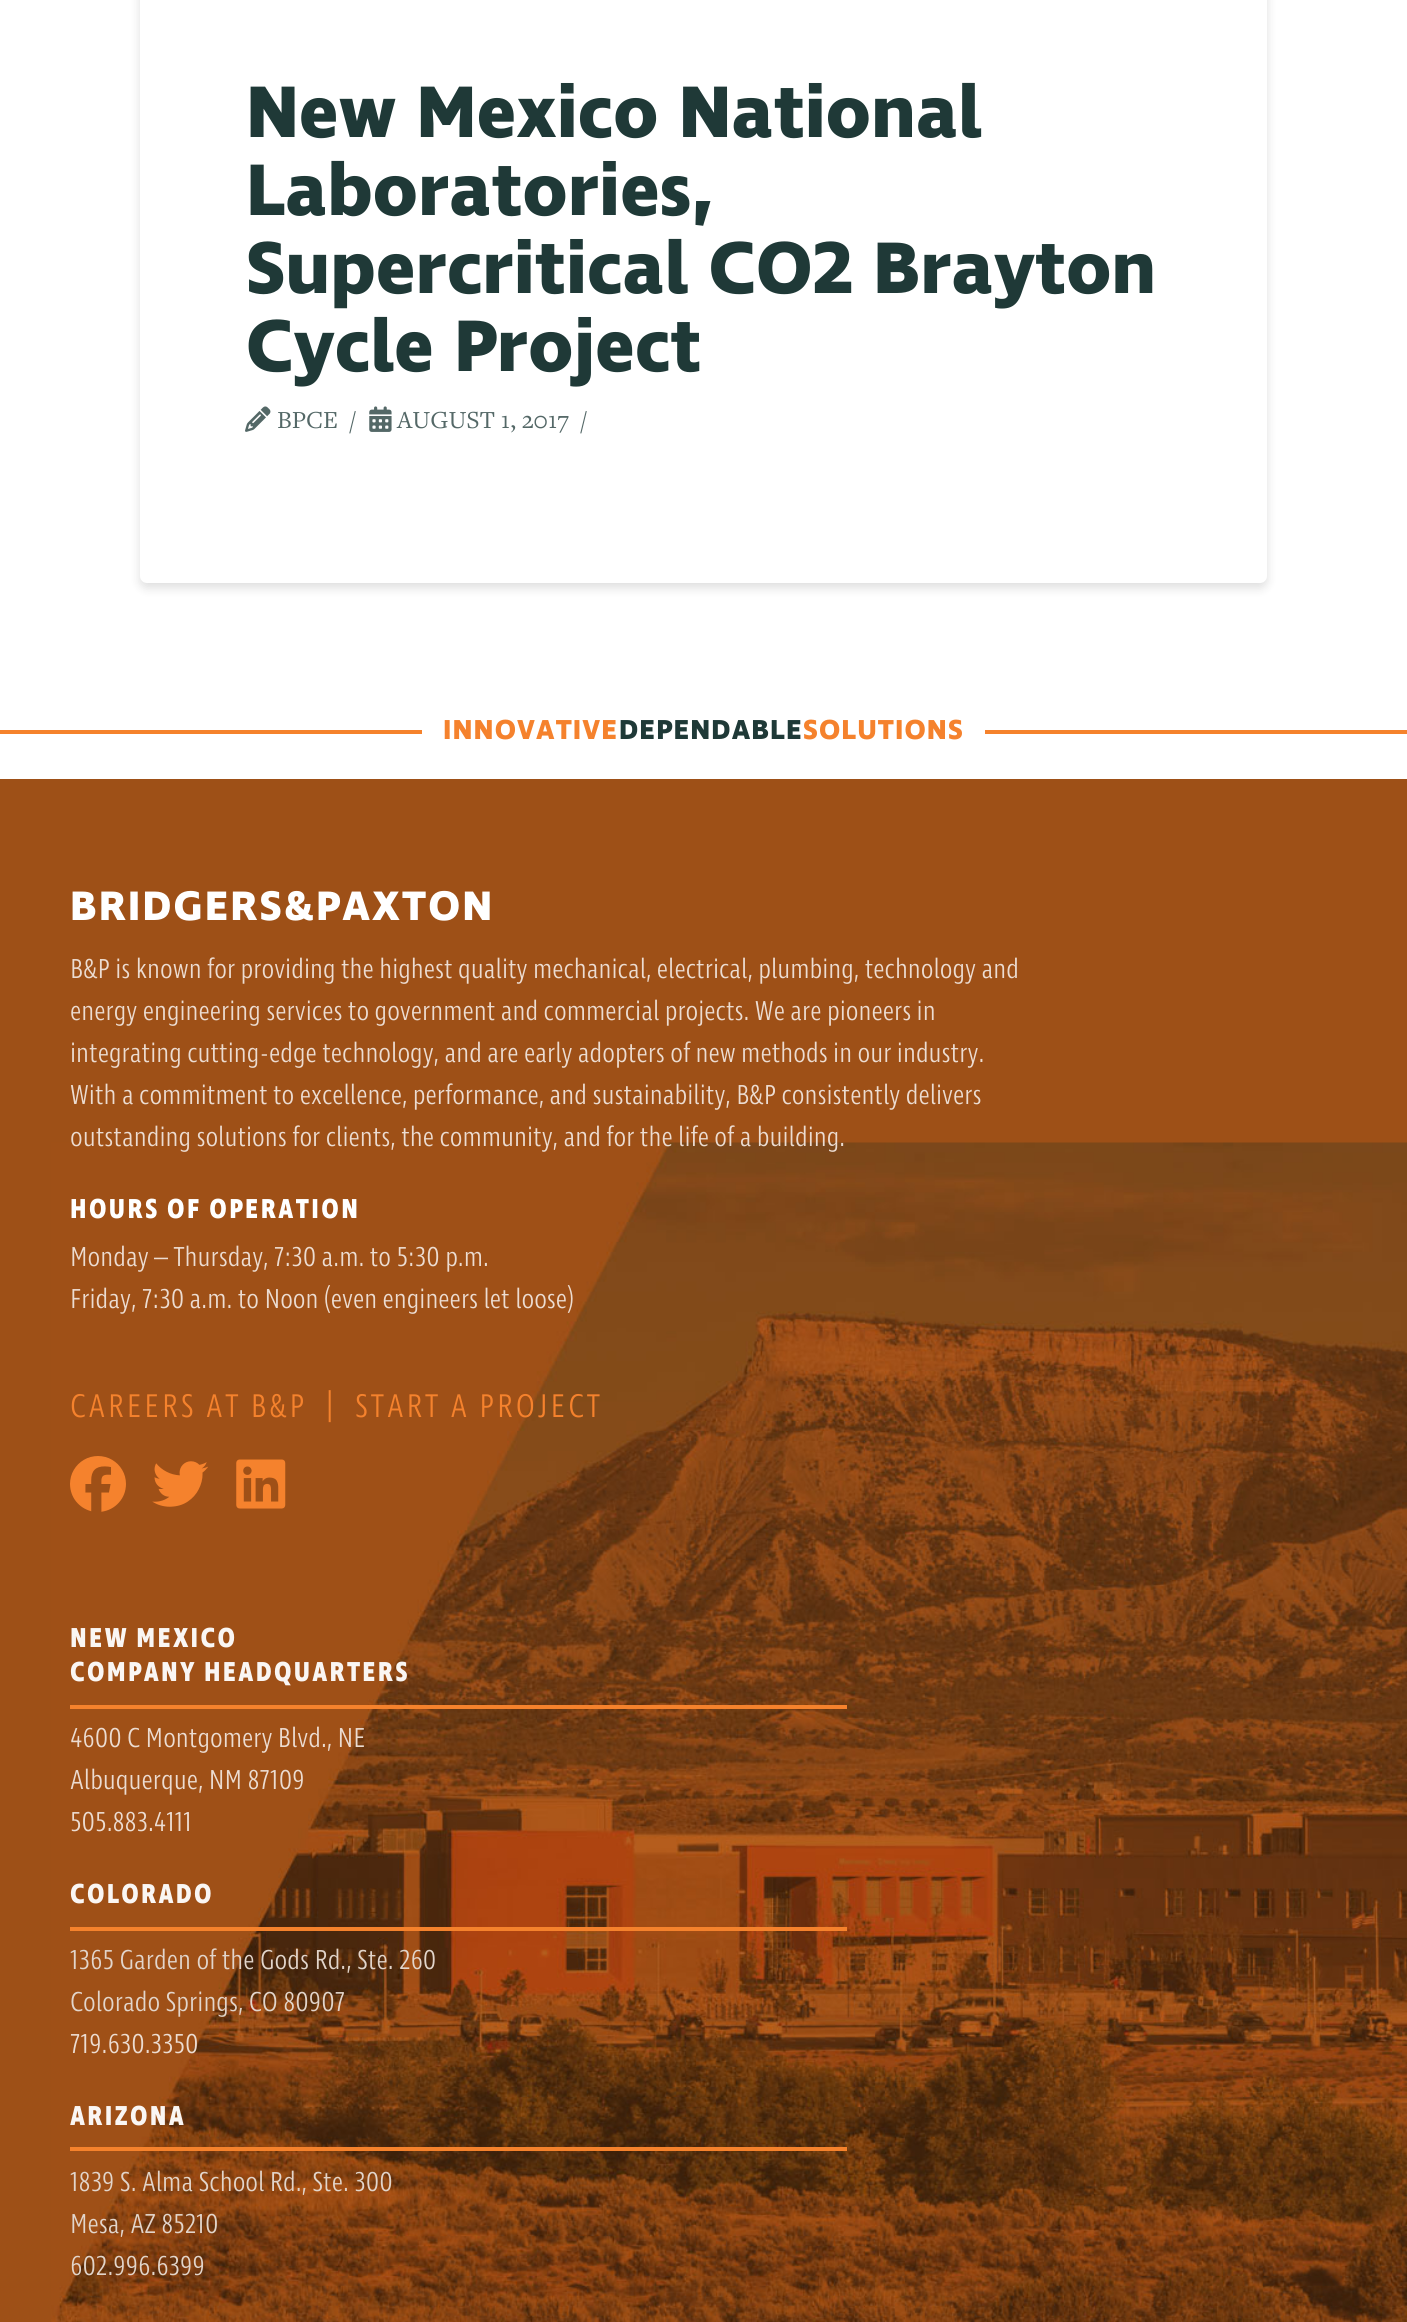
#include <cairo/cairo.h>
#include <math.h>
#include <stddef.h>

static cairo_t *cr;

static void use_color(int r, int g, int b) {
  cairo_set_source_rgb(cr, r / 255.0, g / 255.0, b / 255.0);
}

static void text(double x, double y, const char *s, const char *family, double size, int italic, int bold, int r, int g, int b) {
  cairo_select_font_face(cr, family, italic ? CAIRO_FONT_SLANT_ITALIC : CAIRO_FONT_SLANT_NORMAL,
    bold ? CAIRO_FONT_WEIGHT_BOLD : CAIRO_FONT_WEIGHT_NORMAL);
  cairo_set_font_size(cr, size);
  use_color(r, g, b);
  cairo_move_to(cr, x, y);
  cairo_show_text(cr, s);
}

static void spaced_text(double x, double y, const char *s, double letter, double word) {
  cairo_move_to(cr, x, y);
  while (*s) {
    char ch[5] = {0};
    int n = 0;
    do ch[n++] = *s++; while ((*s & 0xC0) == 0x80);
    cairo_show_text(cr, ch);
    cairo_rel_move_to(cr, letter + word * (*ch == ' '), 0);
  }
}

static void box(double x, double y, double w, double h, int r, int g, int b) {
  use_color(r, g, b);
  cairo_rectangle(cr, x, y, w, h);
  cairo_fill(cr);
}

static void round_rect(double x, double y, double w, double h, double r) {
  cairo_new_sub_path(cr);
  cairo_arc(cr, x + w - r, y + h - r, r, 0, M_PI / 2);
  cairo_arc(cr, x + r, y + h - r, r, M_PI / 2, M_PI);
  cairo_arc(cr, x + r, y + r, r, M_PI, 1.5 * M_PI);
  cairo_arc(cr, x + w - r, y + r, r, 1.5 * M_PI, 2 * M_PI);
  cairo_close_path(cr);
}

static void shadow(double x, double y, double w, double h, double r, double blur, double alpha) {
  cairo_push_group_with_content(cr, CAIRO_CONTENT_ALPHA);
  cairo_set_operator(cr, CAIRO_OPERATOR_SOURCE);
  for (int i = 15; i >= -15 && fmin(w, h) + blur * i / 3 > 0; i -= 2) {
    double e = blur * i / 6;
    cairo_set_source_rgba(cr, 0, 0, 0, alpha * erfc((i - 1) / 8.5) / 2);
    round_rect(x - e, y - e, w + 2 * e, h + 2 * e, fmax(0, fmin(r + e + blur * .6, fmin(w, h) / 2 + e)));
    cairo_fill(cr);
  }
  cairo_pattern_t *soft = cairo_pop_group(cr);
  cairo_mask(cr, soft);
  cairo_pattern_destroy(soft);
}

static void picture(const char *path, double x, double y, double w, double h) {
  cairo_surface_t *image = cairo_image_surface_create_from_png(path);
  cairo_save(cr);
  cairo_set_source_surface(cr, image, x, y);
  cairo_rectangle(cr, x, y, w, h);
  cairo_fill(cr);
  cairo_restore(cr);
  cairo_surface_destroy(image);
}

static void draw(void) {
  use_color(255, 255, 255);
  cairo_paint(cr);
  use_color(0, 0, 0);
  shadow(140, -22, 1127, 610, 7, 5, 0.13);
  use_color(255, 255, 255);
  round_rect(140, -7, 1127, 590, 7);
  cairo_fill(cr);
  picture("img_01.png", 245, 406, 26, 26);
  picture("img_02.png", 369, 406, 23, 26);
  box(0, 730, 1407, 4, 245, 130, 44);
  box(422, 730, 563, 4, 255, 255, 255);
  box(0, 779, 1407, 1543, 158, 80, 23);
  picture("img_06.png", 51, 1142, 1356, 1180);
  picture("img_03.png", 70, 1456, 56, 56);
  picture("img_04.png", 152, 1461, 56, 46);
  picture("img_05.png", 236, 1459, 50, 50);
  box(70, 1705, 777, 4, 245, 130, 44);
  box(70, 1927, 777, 4, 245, 130, 44);
  box(70, 2147, 777, 4, 245, 130, 44);
  text(246, 137, "New Mexico National", "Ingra", 74.4, 0, 1, 31, 57, 55);
  text(246, 215, "Laboratories,", "Ingra", 74.4, 0, 1, 31, 57, 55);
  text(246, 293, "Supercritical CO2 Brayton", "Ingra", 74.4, 0, 1, 31, 57, 55);
  text(246, 371, "Cycle Project", "Ingra", 74.4, 0, 1, 31, 57, 55);
  text(277, 428, "BPCE", "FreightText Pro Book", 25.5, 0, 0, 84, 104, 103);
  text(349, 428, "/", "FreightText Pro Book", 25.5, 0, 0, 84, 104, 103);
  text(397, 428, "AUGUST 1, 2017", "FreightText Pro Book", 25.5, 0, 0, 84, 104, 103);
  text(580, 428, "/", "FreightText Pro Book", 25.5, 0, 0, 84, 104, 103);
  cairo_select_font_face(cr, "Ingra", CAIRO_FONT_SLANT_NORMAL, CAIRO_FONT_WEIGHT_BOLD);
  cairo_set_font_size(cr, 28);
  use_color(245, 130, 45);
  spaced_text(443, 739, "INNOVATIVE", 1.1, 0);
  use_color(31, 57, 55);
  spaced_text(619, 739, "DEPENDABLE", 1.1, 0);
  use_color(245, 130, 45);
  spaced_text(803, 739, "SOLUTIONS", 1.1, 0);
  cairo_set_font_size(cr, 42);
  use_color(255, 255, 255);
  spaced_text(70, 920, "BRIDGERS&PAXTON", 2.1, 0);
  text(70, 978, "B&P is known for providing the highest quality mechanical, electrical, plumbing, technology and", "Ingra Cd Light", 28, 0, 0, 236, 220, 209);
  text(70, 1020, "energy engineering services to government and commercial projects. We are pioneers in", "Ingra Cd Light", 28, 0, 0, 236, 220, 209);
  text(70, 1062, "integrating cutting-edge technology, and are early adopters of new methods in our industry.", "Ingra Cd Light", 28, 0, 0, 236, 220, 209);
  text(70, 1104, "With a commitment to excellence, performance, and sustainability, B&P consistently delivers", "Ingra Cd Light", 28, 0, 0, 236, 220, 209);
  text(70, 1146, "outstanding solutions for clients, the community, and for the life of a building.", "Ingra Cd Light", 28, 0, 0, 236, 220, 209);
  cairo_select_font_face(cr, "Ingra Cd", CAIRO_FONT_SLANT_NORMAL, CAIRO_FONT_WEIGHT_BOLD);
  use_color(255, 255, 255);
  spaced_text(70, 1218, "HOURS OF OPERATION", 2.4, 0);
  text(70, 1266, "Monday – Thursday, 7:30 a.m. to 5:30 p.m.", "Ingra Cd Light", 28, 0, 0, 236, 220, 209);
  text(70, 1308, "Friday, 7:30 a.m. to Noon (even engineers let loose)", "Ingra Cd Light", 28, 0, 0, 236, 220, 209);
  cairo_set_font_size(cr, 33.5);
  use_color(245, 130, 45);
  spaced_text(70, 1417, "CAREERS AT B&P", 2.9, 0);
  spaced_text(326, 1417, "|", 2.9, 0);
  spaced_text(355, 1417, "START A PROJECT", 2.9, 0);
  cairo_select_font_face(cr, "Ingra Cd", CAIRO_FONT_SLANT_NORMAL, CAIRO_FONT_WEIGHT_BOLD);
  cairo_set_font_size(cr, 28);
  use_color(250, 246, 243);
  spaced_text(70, 1647, "NEW MEXICO", 2.25, 0);
  spaced_text(70, 1681, "COMPANY HEADQUARTERS", 2.25, 0);
  text(70, 1747, "4600 C Montgomery Blvd., NE", "Ingra Cd Light", 28, 0, 0, 236, 220, 209);
  text(70, 1789, "Albuquerque, NM 87109", "Ingra Cd Light", 28, 0, 0, 236, 220, 209);
  text(70, 1831, "505.883.4111", "Ingra Cd Light", 28, 0, 0, 236, 220, 209);
  cairo_select_font_face(cr, "Ingra Cd", CAIRO_FONT_SLANT_NORMAL, CAIRO_FONT_WEIGHT_BOLD);
  use_color(250, 246, 243);
  spaced_text(70, 1903, "COLORADO", 2.25, 0);
  text(70, 1969, "1365 Garden of the Gods Rd., Ste. 260", "Ingra Cd Light", 28, 0, 0, 226, 213, 203);
  text(70, 2011, "Colorado Springs, CO 80907", "Ingra Cd Light", 28, 0, 0, 226, 213, 203);
  text(70, 2053, "719.630.3350", "Ingra Cd Light", 28, 0, 0, 236, 220, 209);
  cairo_select_font_face(cr, "Ingra Cd", CAIRO_FONT_SLANT_NORMAL, CAIRO_FONT_WEIGHT_BOLD);
  use_color(250, 246, 243);
  spaced_text(70, 2125, "ARIZONA", 2.25, 0);
  text(70, 2191, "1839 S. Alma School Rd., Ste. 300", "Ingra Cd Light", 28, 0, 0, 226, 213, 203);
  text(70, 2233, "Mesa, AZ 85210", "Ingra Cd Light", 28, 0, 0, 226, 213, 203);
  text(70, 2275, "602.996.6399", "Ingra Cd Light", 28, 0, 0, 226, 213, 203);
}

int main(void) {
  cairo_surface_t *surface = cairo_image_surface_create(CAIRO_FORMAT_RGB24, 1407, 2322);
  cr = cairo_create(surface);
  cairo_font_options_t *options = cairo_font_options_create();
  cairo_font_options_set_hint_metrics(options, CAIRO_HINT_METRICS_OFF);
  cairo_font_options_set_hint_style(options, CAIRO_HINT_STYLE_NONE);
  cairo_set_font_options(cr, options);
  cairo_set_miter_limit(cr, 4);
  draw();
  cairo_surface_write_to_png(surface, "out.png");
  cairo_font_options_destroy(options);
  cairo_destroy(cr);
  cairo_surface_destroy(surface);
  return 0;
}
